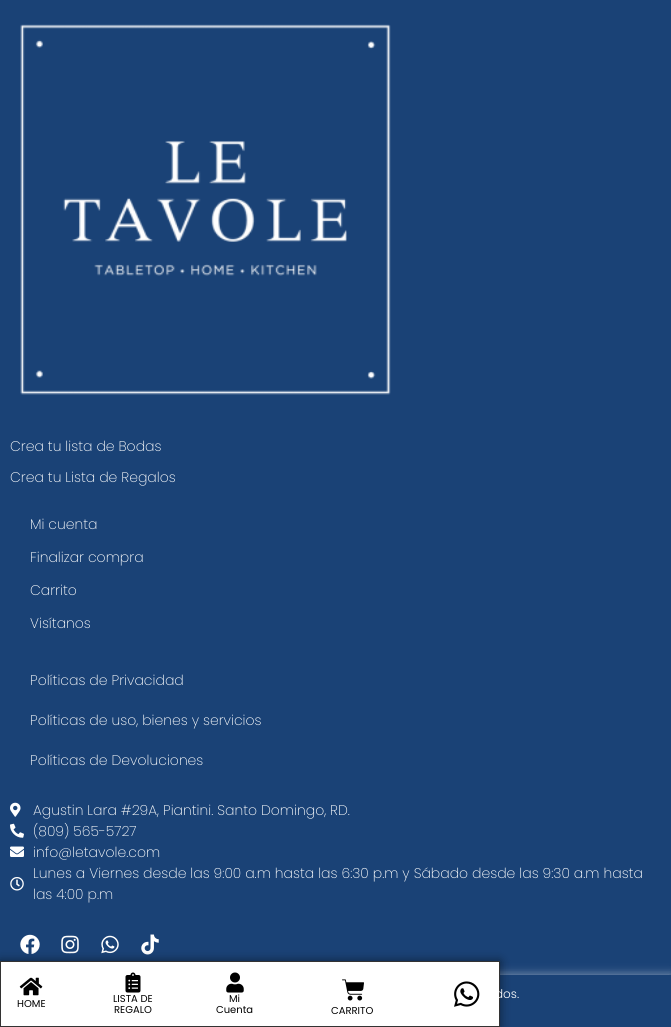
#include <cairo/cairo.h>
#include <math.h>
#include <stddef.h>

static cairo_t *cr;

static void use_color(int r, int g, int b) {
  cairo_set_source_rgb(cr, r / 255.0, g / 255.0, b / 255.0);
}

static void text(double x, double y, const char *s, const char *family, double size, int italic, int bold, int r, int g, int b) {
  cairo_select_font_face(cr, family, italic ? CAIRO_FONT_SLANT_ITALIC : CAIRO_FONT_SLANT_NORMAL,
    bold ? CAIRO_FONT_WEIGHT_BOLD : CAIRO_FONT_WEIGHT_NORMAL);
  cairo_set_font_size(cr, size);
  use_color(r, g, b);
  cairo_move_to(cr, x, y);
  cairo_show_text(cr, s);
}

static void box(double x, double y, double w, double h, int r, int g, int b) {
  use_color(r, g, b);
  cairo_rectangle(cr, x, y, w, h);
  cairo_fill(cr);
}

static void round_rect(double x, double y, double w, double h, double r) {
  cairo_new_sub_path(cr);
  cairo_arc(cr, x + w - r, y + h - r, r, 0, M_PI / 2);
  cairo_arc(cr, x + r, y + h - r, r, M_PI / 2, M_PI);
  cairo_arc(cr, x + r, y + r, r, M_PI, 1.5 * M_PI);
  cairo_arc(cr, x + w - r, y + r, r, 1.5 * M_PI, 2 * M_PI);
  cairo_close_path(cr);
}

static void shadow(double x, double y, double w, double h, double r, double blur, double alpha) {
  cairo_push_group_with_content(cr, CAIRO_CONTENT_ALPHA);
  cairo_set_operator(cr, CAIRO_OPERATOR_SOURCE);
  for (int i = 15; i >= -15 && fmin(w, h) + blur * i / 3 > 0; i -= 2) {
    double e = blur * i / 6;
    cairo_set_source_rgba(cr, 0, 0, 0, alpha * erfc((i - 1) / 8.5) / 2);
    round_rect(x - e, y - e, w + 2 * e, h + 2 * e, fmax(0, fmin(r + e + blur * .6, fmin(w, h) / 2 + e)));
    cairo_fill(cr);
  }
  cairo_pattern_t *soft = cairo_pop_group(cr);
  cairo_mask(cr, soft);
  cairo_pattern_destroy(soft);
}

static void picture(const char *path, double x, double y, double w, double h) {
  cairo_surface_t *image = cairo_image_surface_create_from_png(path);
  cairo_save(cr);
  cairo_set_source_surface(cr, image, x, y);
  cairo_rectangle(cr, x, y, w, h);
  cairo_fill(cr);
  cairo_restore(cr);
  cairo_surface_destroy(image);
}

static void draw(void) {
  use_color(26, 66, 118);
  cairo_paint(cr);
  picture("img_01.png", 20, 24, 371, 371);
  picture("img_02.png", 10, 802, 11, 15);
  picture("img_03.png", 10, 823, 14, 15);
  picture("img_04.png", 10, 846, 14, 11);
  picture("img_05.png", 10, 877, 14, 14);
  picture("img_06.png", 20, 934, 20, 20);
  picture("img_07.png", 61, 935, 18, 19);
  picture("img_08.png", 101, 935, 18, 19);
  picture("img_09.png", 141, 934, 18, 21);
  use_color(255, 255, 255);
  shadow(0, 975, 671, 52, 0, 5, 0.5);
  box(500, 975, 171, 52, 26, 66, 118);
  use_color(0, 0, 0);
  shadow(0, 961, 500, 66, 0, 5, 0.5);
  use_color(255, 255, 255);
  cairo_rectangle(cr, 0.5, 961.5, 499, 65);
  cairo_fill_preserve(cr);
  use_color(51, 51, 51);
  cairo_set_line_width(cr, 1);
  cairo_stroke(cr);
  picture("img_10.png", 19, 977, 24, 19);
  picture("img_11.png", 125, 972, 16, 21);
  picture("img_12.png", 226, 972, 18, 21);
  picture("img_13.png", 454, 981, 26, 26);
  picture("img_14.png", 342, 979, 22, 22);
  text(10, 451, "Crea tu lista de Bodas", "Poppins ExtraLight", 14, 0, 0, 255, 255, 255);
  text(10, 482, "Crea tu Lista de Regalos", "Poppins ExtraLight", 14, 0, 0, 255, 255, 255);
  text(30, 529, "Mi cuenta", "Poppins ExtraLight", 14, 0, 0, 255, 255, 255);
  text(30, 562, "Finalizar compra", "Poppins ExtraLight", 14, 0, 0, 255, 255, 255);
  text(30, 595, "Carrito", "Poppins ExtraLight", 14, 0, 0, 255, 255, 255);
  text(30, 628, "Visítanos", "Poppins ExtraLight", 14, 0, 0, 255, 255, 255);
  text(30, 685, "Políticas de Privacidad", "Poppins ExtraLight", 14, 0, 0, 255, 255, 255);
  text(30, 725, "Políticas de uso, bienes y servicios", "Poppins ExtraLight", 14, 0, 0, 255, 255, 255);
  text(30, 765, "Políticas de Devoluciones", "Poppins ExtraLight", 14, 0, 0, 255, 255, 255);
  text(33, 815, "Agustin Lara #29A, Piantini. Santo Domingo, RD.", "Poppins ExtraLight", 14, 0, 0, 255, 255, 255);
  text(33, 836, "(809) 565-5727", "Poppins ExtraLight", 14, 0, 0, 255, 255, 255);
  text(33, 857, "info@letavole.com", "Poppins ExtraLight", 14, 0, 0, 255, 255, 255);
  text(33, 878, "Lunes a Viernes desde las 9:00 a.m hasta las 6:30 p.m y Sábado desde las 9:30 a.m hasta", "Poppins ExtraLight", 14, 0, 0, 255, 255, 255);
  text(33, 899, "las 4:00 p.m", "Poppins ExtraLight", 14, 0, 0, 255, 255, 255);
  text(495, 998, "dos.", "Poppins Light", 12, 0, 0, 255, 255, 255);
  text(17, 1007, "HOME", "Poppins", 10, 0, 0, 0, 0, 0);
  text(113, 1002, "LISTA DE", "Poppins", 10, 0, 0, 0, 0, 0);
  text(114, 1013, "REGALO", "Poppins", 10, 0, 0, 0, 0, 0);
  text(229, 1002, "Mi", "Poppins", 10, 0, 0, 0, 0, 0);
  text(216, 1013, "Cuenta", "Poppins", 10, 0, 0, 0, 0, 0);
  text(331, 1014, "CARRITO", "Poppins", 10, 0, 0, 0, 0, 0);
}

int main(void) {
  cairo_surface_t *surface = cairo_image_surface_create(CAIRO_FORMAT_RGB24, 671, 1027);
  cr = cairo_create(surface);
  cairo_font_options_t *options = cairo_font_options_create();
  cairo_font_options_set_hint_metrics(options, CAIRO_HINT_METRICS_OFF);
  cairo_font_options_set_hint_style(options, CAIRO_HINT_STYLE_NONE);
  cairo_set_font_options(cr, options);
  cairo_set_miter_limit(cr, 4);
  draw();
  cairo_surface_write_to_png(surface, "out.png");
  cairo_font_options_destroy(options);
  cairo_destroy(cr);
  cairo_surface_destroy(surface);
  return 0;
}
